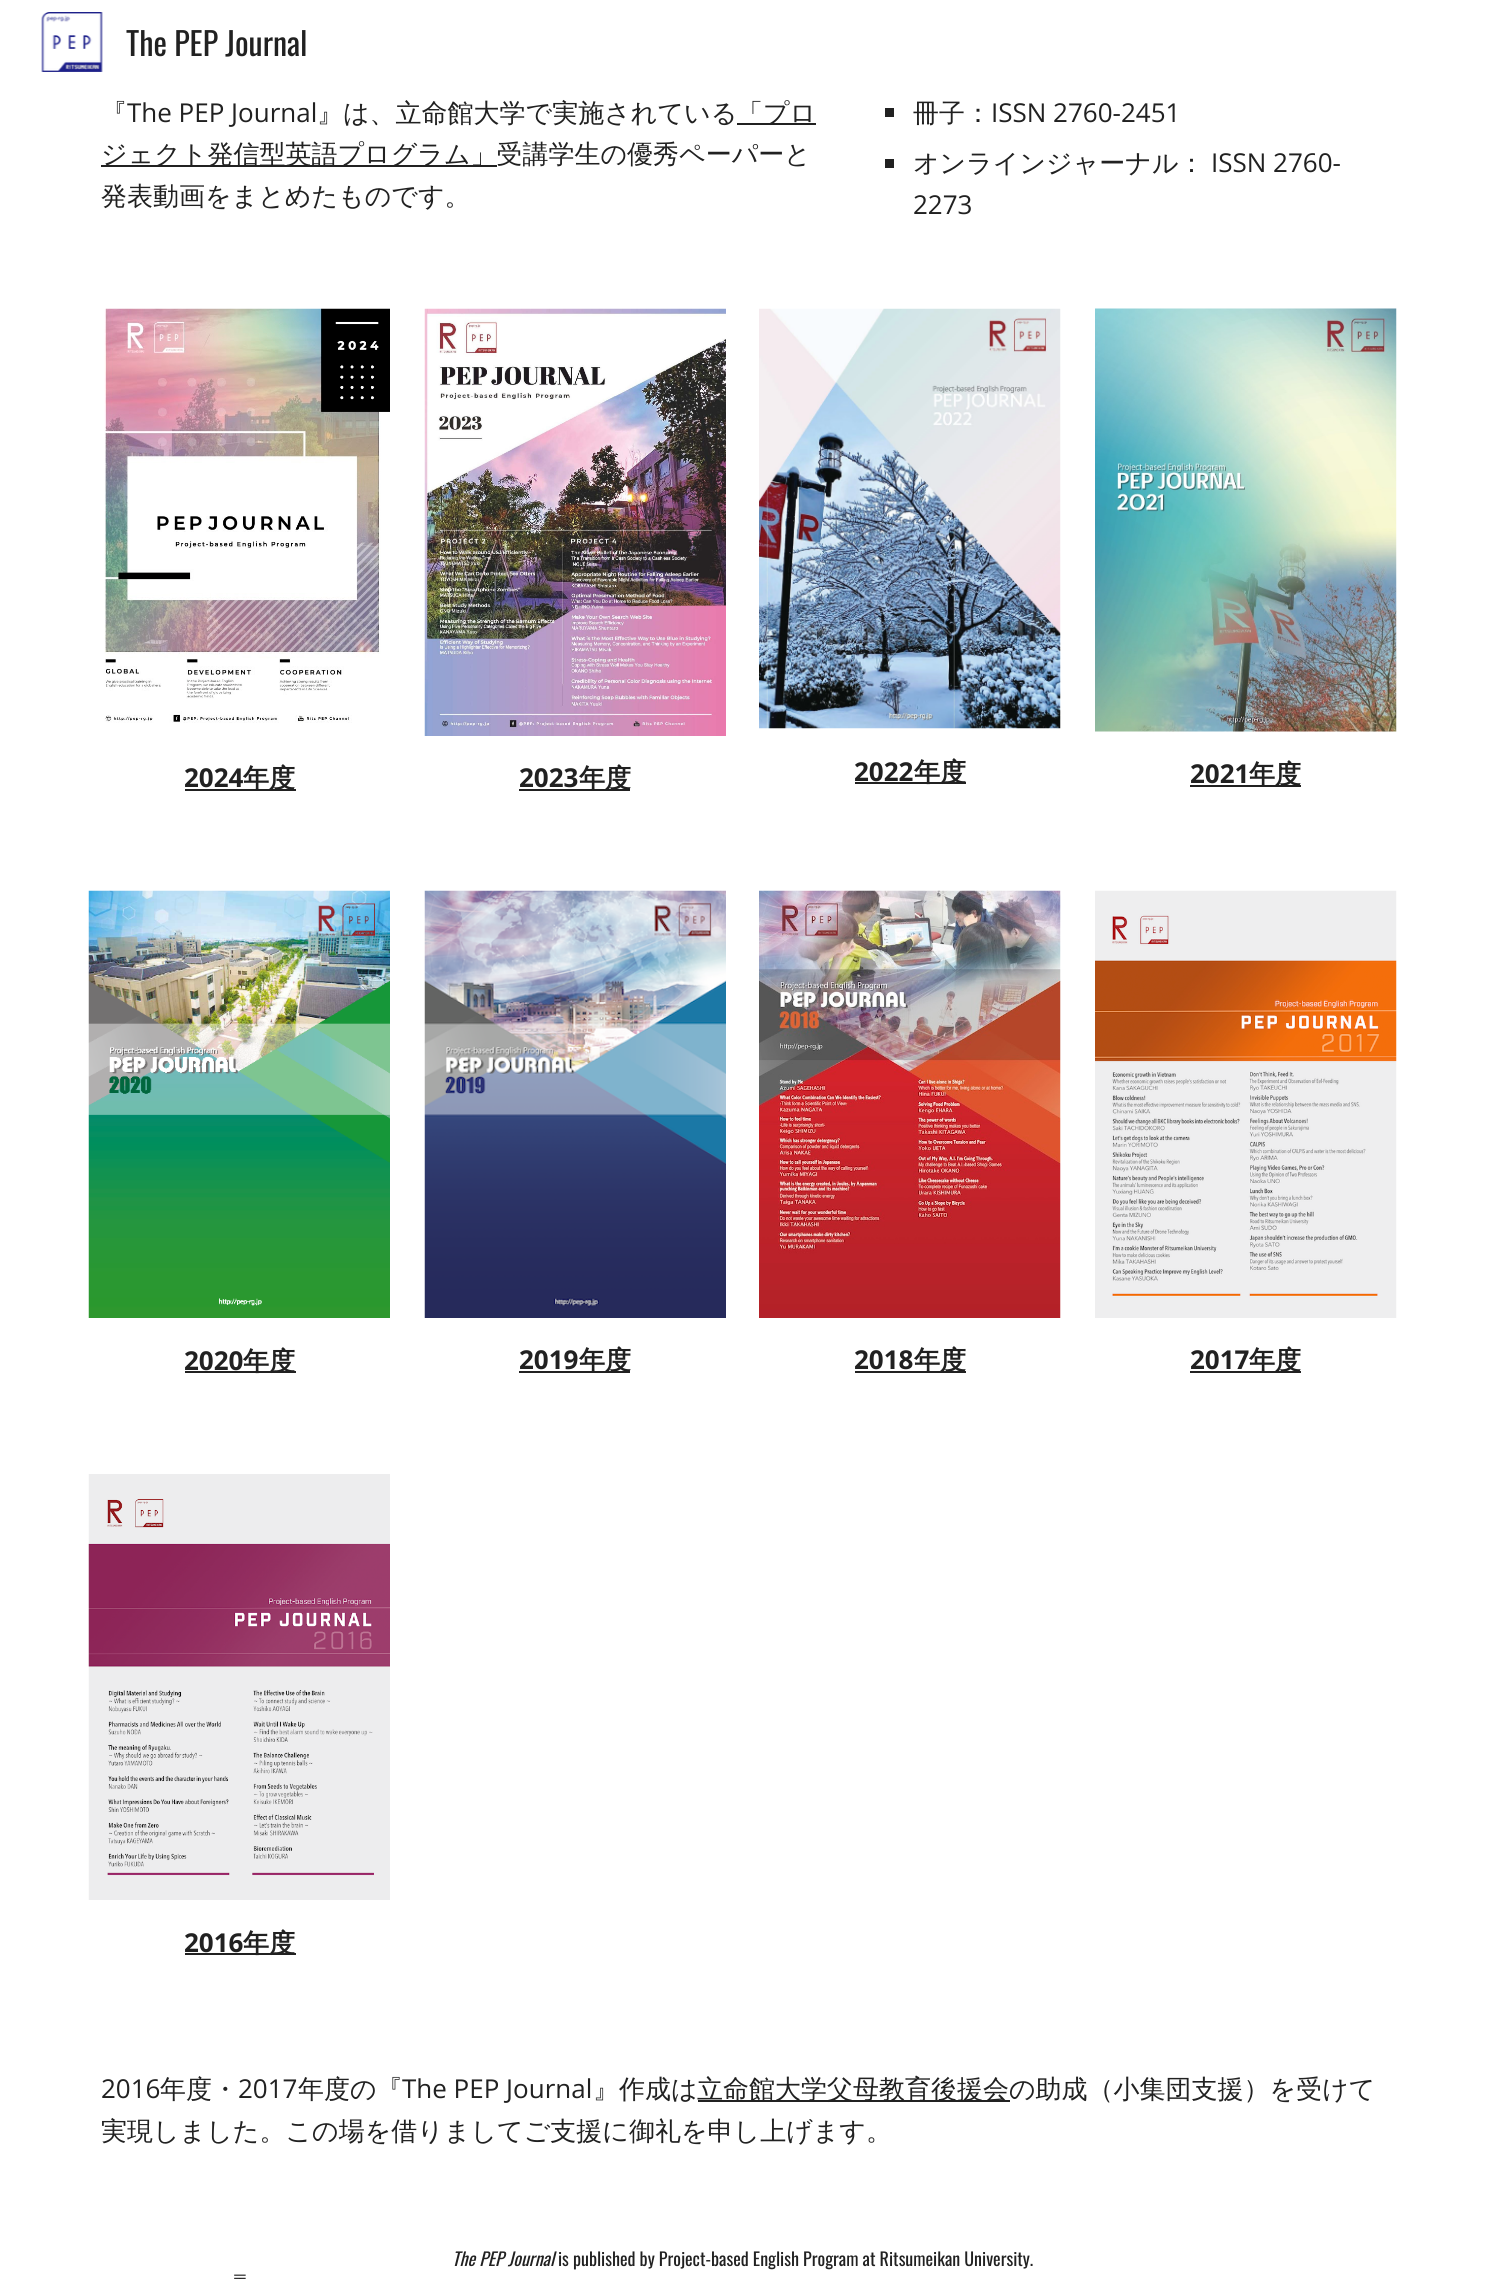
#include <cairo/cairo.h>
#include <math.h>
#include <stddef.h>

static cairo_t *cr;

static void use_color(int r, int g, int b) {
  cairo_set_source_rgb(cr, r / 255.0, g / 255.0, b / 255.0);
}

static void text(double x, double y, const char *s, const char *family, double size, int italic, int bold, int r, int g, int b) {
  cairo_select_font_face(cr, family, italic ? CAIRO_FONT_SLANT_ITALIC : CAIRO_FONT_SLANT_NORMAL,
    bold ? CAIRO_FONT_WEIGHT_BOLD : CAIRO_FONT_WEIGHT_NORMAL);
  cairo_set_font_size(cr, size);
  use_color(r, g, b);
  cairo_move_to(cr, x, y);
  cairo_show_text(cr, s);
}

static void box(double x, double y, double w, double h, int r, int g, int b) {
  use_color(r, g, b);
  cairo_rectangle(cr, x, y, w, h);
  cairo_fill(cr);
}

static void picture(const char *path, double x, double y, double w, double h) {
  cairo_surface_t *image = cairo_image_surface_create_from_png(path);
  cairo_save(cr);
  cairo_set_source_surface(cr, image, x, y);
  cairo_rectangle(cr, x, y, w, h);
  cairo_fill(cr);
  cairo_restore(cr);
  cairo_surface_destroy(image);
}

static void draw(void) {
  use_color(255, 255, 255);
  cairo_paint(cr);
  picture("img_01.png", 41, 12, 62, 60);
  box(737, 123, 79, 2, 33, 33, 33);
  box(101, 165, 396, 2, 33, 33, 33);
  box(885, 108, 9, 9, 33, 33, 33);
  box(885, 159, 9, 9, 33, 33, 33);
  picture("img_02.png", 104, 308, 286, 415);
  box(185, 789, 111, 2, 33, 33, 33);
  picture("img_03.png", 424, 308, 302, 428);
  box(519, 789, 111, 2, 33, 33, 33);
  picture("img_04.png", 759, 308, 302, 421);
  box(855, 782, 111, 2, 33, 33, 33);
  picture("img_05.png", 1095, 308, 302, 424);
  box(1190, 785, 111, 2, 33, 33, 33);
  picture("img_06.png", 88, 890, 302, 428);
  box(185, 1371, 111, 2, 33, 33, 33);
  picture("img_07.png", 424, 890, 302, 428);
  box(519, 1371, 111, 2, 33, 33, 33);
  picture("img_08.png", 759, 890, 302, 428);
  box(855, 1371, 111, 2, 33, 33, 33);
  picture("img_09.png", 1095, 890, 302, 428);
  box(1190, 1371, 111, 2, 33, 33, 33);
  picture("img_10.png", 88, 1474, 302, 426);
  box(185, 1953, 111, 2, 33, 33, 33);
  box(698, 2100, 312, 2, 33, 33, 33);
  text(126, 56, "The PEP Journal", "Oswald", 32, 0, 0, 33, 33, 33);
  text(101, 122, "『", "WenQuanYi Zen Hei Medium", 26, 0, 0, 33, 33, 33);
  text(127, 122, "The PEP Journal", "Open Sans", 26, 0, 0, 33, 33, 33);
  text(317, 122, "』は、立命館大学で実施されている", "WenQuanYi Zen Hei Medium", 26, 0, 0, 33, 33, 33);
  text(737, 122, "「プロ", "WenQuanYi Zen Hei Medium", 26, 0, 0, 33, 33, 33);
  text(101, 163, "ジェクト発信型英語プログラム」受講学生の優秀ペーパーと", "WenQuanYi Zen Hei Medium", 26, 0, 0, 33, 33, 33);
  text(101, 205, "発表動画をまとめたものです。", "WenQuanYi Zen Hei Medium", 26, 0, 0, 33, 33, 33);
  text(913, 122, "冊子：", "WenQuanYi Zen Hei Medium", 26, 0, 0, 33, 33, 33);
  text(991, 122, "ISSN 2760-2451", "Open Sans", 26, 0, 0, 33, 33, 33);
  text(913, 172, "オンラインジャーナル：", "WenQuanYi Zen Hei Medium", 26, 0, 0, 33, 33, 33);
  text(1211, 172, "ISSN 2760-", "Open Sans", 26, 0, 0, 33, 33, 33);
  text(913, 214, "2273", "Open Sans", 26, 0, 0, 33, 33, 33);
  text(184, 787, "2024", "Open Sans", 26, 0, 1, 33, 33, 33);
  text(243, 787, "年度", "WenQuanYi Zen Hei", 26, 0, 1, 33, 33, 33);
  text(519, 787, "2023", "Open Sans", 26, 0, 1, 33, 33, 33);
  text(579, 787, "年度", "WenQuanYi Zen Hei", 26, 0, 1, 33, 33, 33);
  text(854, 781, "2022", "Open Sans", 26, 0, 1, 33, 33, 33);
  text(914, 781, "年度", "WenQuanYi Zen Hei", 26, 0, 1, 33, 33, 33);
  text(1190, 783, "2021", "Open Sans", 26, 0, 1, 33, 33, 33);
  text(1249, 783, "年度", "WenQuanYi Zen Hei", 26, 0, 1, 33, 33, 33);
  text(184, 1370, "2020", "Open Sans", 26, 0, 1, 33, 33, 33);
  text(243, 1370, "年度", "WenQuanYi Zen Hei", 26, 0, 1, 33, 33, 33);
  text(519, 1369, "2019", "Open Sans", 26, 0, 1, 33, 33, 33);
  text(579, 1369, "年度", "WenQuanYi Zen Hei", 26, 0, 1, 33, 33, 33);
  text(854, 1369, "2018", "Open Sans", 26, 0, 1, 33, 33, 33);
  text(914, 1369, "年度", "WenQuanYi Zen Hei", 26, 0, 1, 33, 33, 33);
  text(1190, 1369, "2017", "Open Sans", 26, 0, 1, 33, 33, 33);
  text(1249, 1369, "年度", "WenQuanYi Zen Hei", 26, 0, 1, 33, 33, 33);
  text(184, 1952, "2016", "Open Sans", 26, 0, 1, 33, 33, 33);
  text(243, 1952, "年度", "WenQuanYi Zen Hei", 26, 0, 1, 33, 33, 33);
  text(101, 2098, "2016", "Open Sans", 26, 0, 0, 33, 33, 33);
  text(160, 2098, "年度・", "WenQuanYi Zen Hei Medium", 26, 0, 0, 33, 33, 33);
  text(238, 2098, "2017", "Open Sans", 26, 0, 0, 33, 33, 33);
  text(298, 2098, "年度の『", "WenQuanYi Zen Hei Medium", 26, 0, 0, 33, 33, 33);
  text(402, 2098, "The PEP Journal", "Open Sans", 26, 0, 0, 33, 33, 33);
  text(593, 2098, "』作成は", "WenQuanYi Zen Hei Medium", 26, 0, 0, 33, 33, 33);
  text(697, 2098, "立命館大学父母教育後援会の助成（小集団支援）を受けて", "WenQuanYi Zen Hei Medium", 26, 0, 0, 33, 33, 33);
  text(101, 2140, "実現しました。この場を借りましてご支援に御礼を申し上げます。", "WenQuanYi Zen Hei Medium", 26, 0, 0, 33, 33, 33);
  text(452, 2266, "The PEP Journal", "Oswald", 18, 1, 0, 33, 33, 33);
  text(558, 2266, "is published by Project-based English Program at Ritsumeikan University.", "Oswald", 18, 0, 0, 33, 33, 33);
  text(233, 2287, "〒", "WenQuanYi Zen Hei Medium", 18, 0, 0, 33, 33, 33);
}

int main(void) {
  cairo_surface_t *surface = cairo_image_surface_create(CAIRO_FORMAT_RGB24, 1485, 2279);
  cr = cairo_create(surface);
  cairo_font_options_t *options = cairo_font_options_create();
  cairo_font_options_set_hint_metrics(options, CAIRO_HINT_METRICS_OFF);
  cairo_font_options_set_hint_style(options, CAIRO_HINT_STYLE_NONE);
  cairo_set_font_options(cr, options);
  cairo_set_miter_limit(cr, 4);
  draw();
  cairo_surface_write_to_png(surface, "out.png");
  cairo_font_options_destroy(options);
  cairo_destroy(cr);
  cairo_surface_destroy(surface);
  return 0;
}
